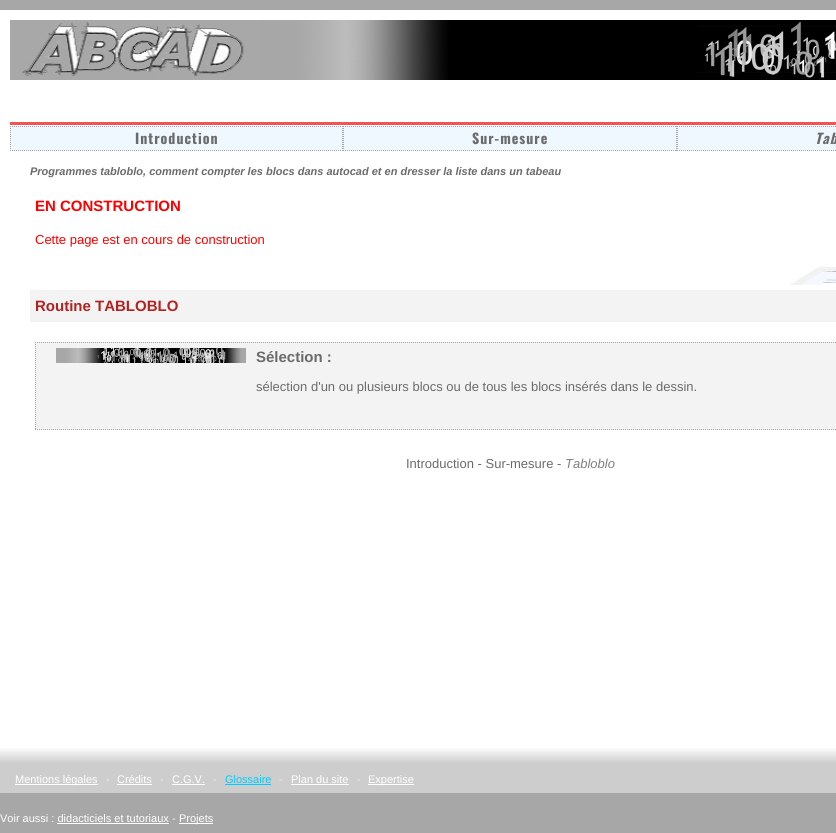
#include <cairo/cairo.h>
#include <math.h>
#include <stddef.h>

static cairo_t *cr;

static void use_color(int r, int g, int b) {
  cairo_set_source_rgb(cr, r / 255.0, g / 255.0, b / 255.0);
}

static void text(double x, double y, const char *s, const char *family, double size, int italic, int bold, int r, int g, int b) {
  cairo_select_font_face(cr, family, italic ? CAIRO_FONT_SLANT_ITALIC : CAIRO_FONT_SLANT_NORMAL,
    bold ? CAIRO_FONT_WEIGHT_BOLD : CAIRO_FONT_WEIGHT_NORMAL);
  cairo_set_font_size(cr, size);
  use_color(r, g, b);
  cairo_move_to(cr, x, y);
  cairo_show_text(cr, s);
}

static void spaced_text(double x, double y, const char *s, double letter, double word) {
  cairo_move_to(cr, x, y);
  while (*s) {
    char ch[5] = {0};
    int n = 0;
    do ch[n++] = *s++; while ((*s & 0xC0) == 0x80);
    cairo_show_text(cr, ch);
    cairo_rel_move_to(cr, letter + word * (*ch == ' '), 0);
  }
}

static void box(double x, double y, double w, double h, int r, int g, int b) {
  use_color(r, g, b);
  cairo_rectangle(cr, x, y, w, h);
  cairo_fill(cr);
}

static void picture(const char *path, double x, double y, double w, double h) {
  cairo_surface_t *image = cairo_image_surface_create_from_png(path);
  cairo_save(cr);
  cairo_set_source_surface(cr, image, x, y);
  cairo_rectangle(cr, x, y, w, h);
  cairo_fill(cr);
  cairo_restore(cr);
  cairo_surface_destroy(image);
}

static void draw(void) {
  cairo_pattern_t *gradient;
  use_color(255, 255, 255);
  cairo_paint(cr);
  box(0, 0, 836, 10, 167, 167, 167);
  picture("img_01.png", 260, 20, 576, 60);
  picture("img_02.png", 10, 20, 250, 60);
  box(10, 122, 826, 3, 244, 84, 86);
  box(10, 126, 826, 25, 240, 248, 255);
  cairo_new_path(cr);
  cairo_move_to(cr, 10, 126.5);
  cairo_line_to(cr, 343, 126.5);
  use_color(167, 167, 167);
  cairo_set_line_width(cr, 1);
  cairo_set_dash(cr, (double[]){1, 1}, 2, 0);
  cairo_stroke(cr);
  cairo_new_path(cr);
  cairo_move_to(cr, 342.5, 126);
  cairo_line_to(cr, 342.5, 151);
  cairo_stroke(cr);
  cairo_new_path(cr);
  cairo_move_to(cr, 10, 150.5);
  cairo_line_to(cr, 343, 150.5);
  cairo_stroke(cr);
  cairo_new_path(cr);
  cairo_move_to(cr, 10.5, 126);
  cairo_line_to(cr, 10.5, 151);
  cairo_stroke(cr);
  cairo_new_path(cr);
  cairo_move_to(cr, 343, 126.5);
  cairo_line_to(cr, 677, 126.5);
  cairo_stroke(cr);
  cairo_new_path(cr);
  cairo_move_to(cr, 676.5, 126);
  cairo_line_to(cr, 676.5, 151);
  cairo_stroke(cr);
  cairo_new_path(cr);
  cairo_move_to(cr, 343, 150.5);
  cairo_line_to(cr, 677, 150.5);
  cairo_stroke(cr);
  cairo_new_path(cr);
  cairo_move_to(cr, 343.5, 126);
  cairo_line_to(cr, 343.5, 151);
  cairo_stroke(cr);
  cairo_new_path(cr);
  cairo_move_to(cr, 677, 126.5);
  cairo_line_to(cr, 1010, 126.5);
  cairo_stroke(cr);
  cairo_new_path(cr);
  cairo_move_to(cr, 677, 150.5);
  cairo_line_to(cr, 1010, 150.5);
  cairo_stroke(cr);
  cairo_new_path(cr);
  cairo_move_to(cr, 677.5, 126);
  cairo_line_to(cr, 677.5, 151);
  cairo_stroke(cr);
  picture("img_03.png", 790, 266, 46, 19);
  box(30, 290, 806, 32, 243, 243, 243);
  box(35, 342, 801, 88, 243, 243, 243);
  cairo_new_path(cr);
  cairo_move_to(cr, 35, 342.5);
  cairo_line_to(cr, 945, 342.5);
  use_color(167, 167, 167);
  cairo_stroke(cr);
  cairo_new_path(cr);
  cairo_move_to(cr, 35, 429.5);
  cairo_line_to(cr, 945, 429.5);
  cairo_stroke(cr);
  cairo_new_path(cr);
  cairo_move_to(cr, 35.5, 342);
  cairo_line_to(cr, 35.5, 430);
  cairo_stroke(cr);
  picture("img_04.png", 56, 348, 190, 15);
  gradient = cairo_pattern_create_linear(510, 745, 510, 765);
  cairo_pattern_add_color_stop_rgba(gradient, 0.1, 1, 1, 1, 1);
  cairo_pattern_add_color_stop_rgba(gradient, 0.9, 0.804, 0.804, 0.804, 1);
  cairo_set_source(cr, gradient);
  cairo_pattern_destroy(gradient);
  cairo_rectangle(cr, 0, 748, 836, 17);
  cairo_fill(cr);
  box(0, 765, 836, 28, 205, 205, 205);
  box(15, 784, 83, 1, 255, 255, 255);
  box(117, 784, 35, 1, 255, 255, 255);
  box(172, 784, 33, 1, 255, 255, 255);
  box(225, 784, 46, 1, 0, 204, 255);
  box(291, 784, 58, 1, 255, 255, 255);
  box(368, 784, 46, 1, 255, 255, 255);
  box(0, 793, 836, 40, 167, 167, 167);
  box(179, 823, 34, 1, 255, 255, 255);
  box(57, 823, 112, 1, 255, 255, 255);
  cairo_select_font_face(cr, "Oswald", CAIRO_FONT_SLANT_NORMAL, CAIRO_FONT_WEIGHT_BOLD);
  cairo_set_font_size(cr, 14);
  use_color(107, 107, 107);
  spaced_text(135, 144, "Introduction", 1, 0);
  spaced_text(472, 144, "Sur-mesure", 1, 0);
  cairo_select_font_face(cr, "Oswald", CAIRO_FONT_SLANT_ITALIC, CAIRO_FONT_WEIGHT_BOLD);
  spaced_text(815, 144, "Tab", 1, 0);
  text(30, 175, "Programmes tabloblo, comment compter les blocs dans autocad et en dresser la liste dans un tabeau", "Liberation Sans", 11, 1, 1, 107, 107, 107);
  text(35, 211, "EN CONSTRUCTION", "Liberation Sans", 15, 0, 1, 255, 0, 0);
  text(35, 244, "Cette page est en cours de construction", "Liberation Sans", 13, 0, 0, 255, 0, 0);
  text(35, 311, "Routine TABLOBLO", "Liberation Sans", 15, 0, 1, 178, 34, 34);
  text(256, 362, "Sélection :", "Liberation Sans", 15, 0, 1, 107, 107, 107);
  text(256, 391, "sélection d'un ou plusieurs blocs ou de tous les blocs insérés dans le dessin.", "Liberation Sans", 13, 0, 0, 107, 107, 107);
  text(406, 468, "Introduction - Sur-mesure -", "Liberation Sans", 13, 0, 0, 107, 107, 107);
  text(565, 468, "Tabloblo", "Liberation Sans", 13, 1, 0, 128, 128, 128);
  text(15, 783, "Mentions légales", "Liberation Sans", 11, 0, 0, 255, 255, 255);
  text(106, 783, "-", "Liberation Sans", 11, 0, 0, 238, 238, 238);
  text(117, 783, "Crédits", "Liberation Sans", 11, 0, 0, 255, 255, 255);
  text(160, 783, "-", "Liberation Sans", 11, 0, 0, 238, 238, 238);
  text(172, 783, "C.G.V.", "Liberation Sans", 11, 0, 0, 255, 255, 255);
  text(213, 783, "-", "Liberation Sans", 11, 0, 0, 238, 238, 238);
  text(225, 783, "Glossaire", "Liberation Sans", 11, 0, 0, 0, 204, 255);
  text(279, 783, "-", "Liberation Sans", 11, 0, 0, 238, 238, 238);
  text(291, 783, "Plan du site", "Liberation Sans", 11, 0, 0, 255, 255, 255);
  text(357, 783, "-", "Liberation Sans", 11, 0, 0, 238, 238, 238);
  text(368, 783, "Expertise", "Liberation Sans", 11, 0, 0, 255, 255, 255);
  text(0, 822, "Voir aussi : didacticiels et tutoriaux", "Liberation Sans", 11, 0, 0, 255, 255, 255);
  text(172, 822, "-", "Liberation Sans", 11, 0, 0, 238, 238, 238);
  text(179, 822, "Projets", "Liberation Sans", 11, 0, 0, 255, 255, 255);
}

int main(void) {
  cairo_surface_t *surface = cairo_image_surface_create(CAIRO_FORMAT_RGB24, 836, 833);
  cr = cairo_create(surface);
  cairo_font_options_t *options = cairo_font_options_create();
  cairo_font_options_set_hint_metrics(options, CAIRO_HINT_METRICS_OFF);
  cairo_font_options_set_hint_style(options, CAIRO_HINT_STYLE_NONE);
  cairo_set_font_options(cr, options);
  cairo_set_miter_limit(cr, 4);
  draw();
  cairo_surface_write_to_png(surface, "out.png");
  cairo_font_options_destroy(options);
  cairo_destroy(cr);
  cairo_surface_destroy(surface);
  return 0;
}
